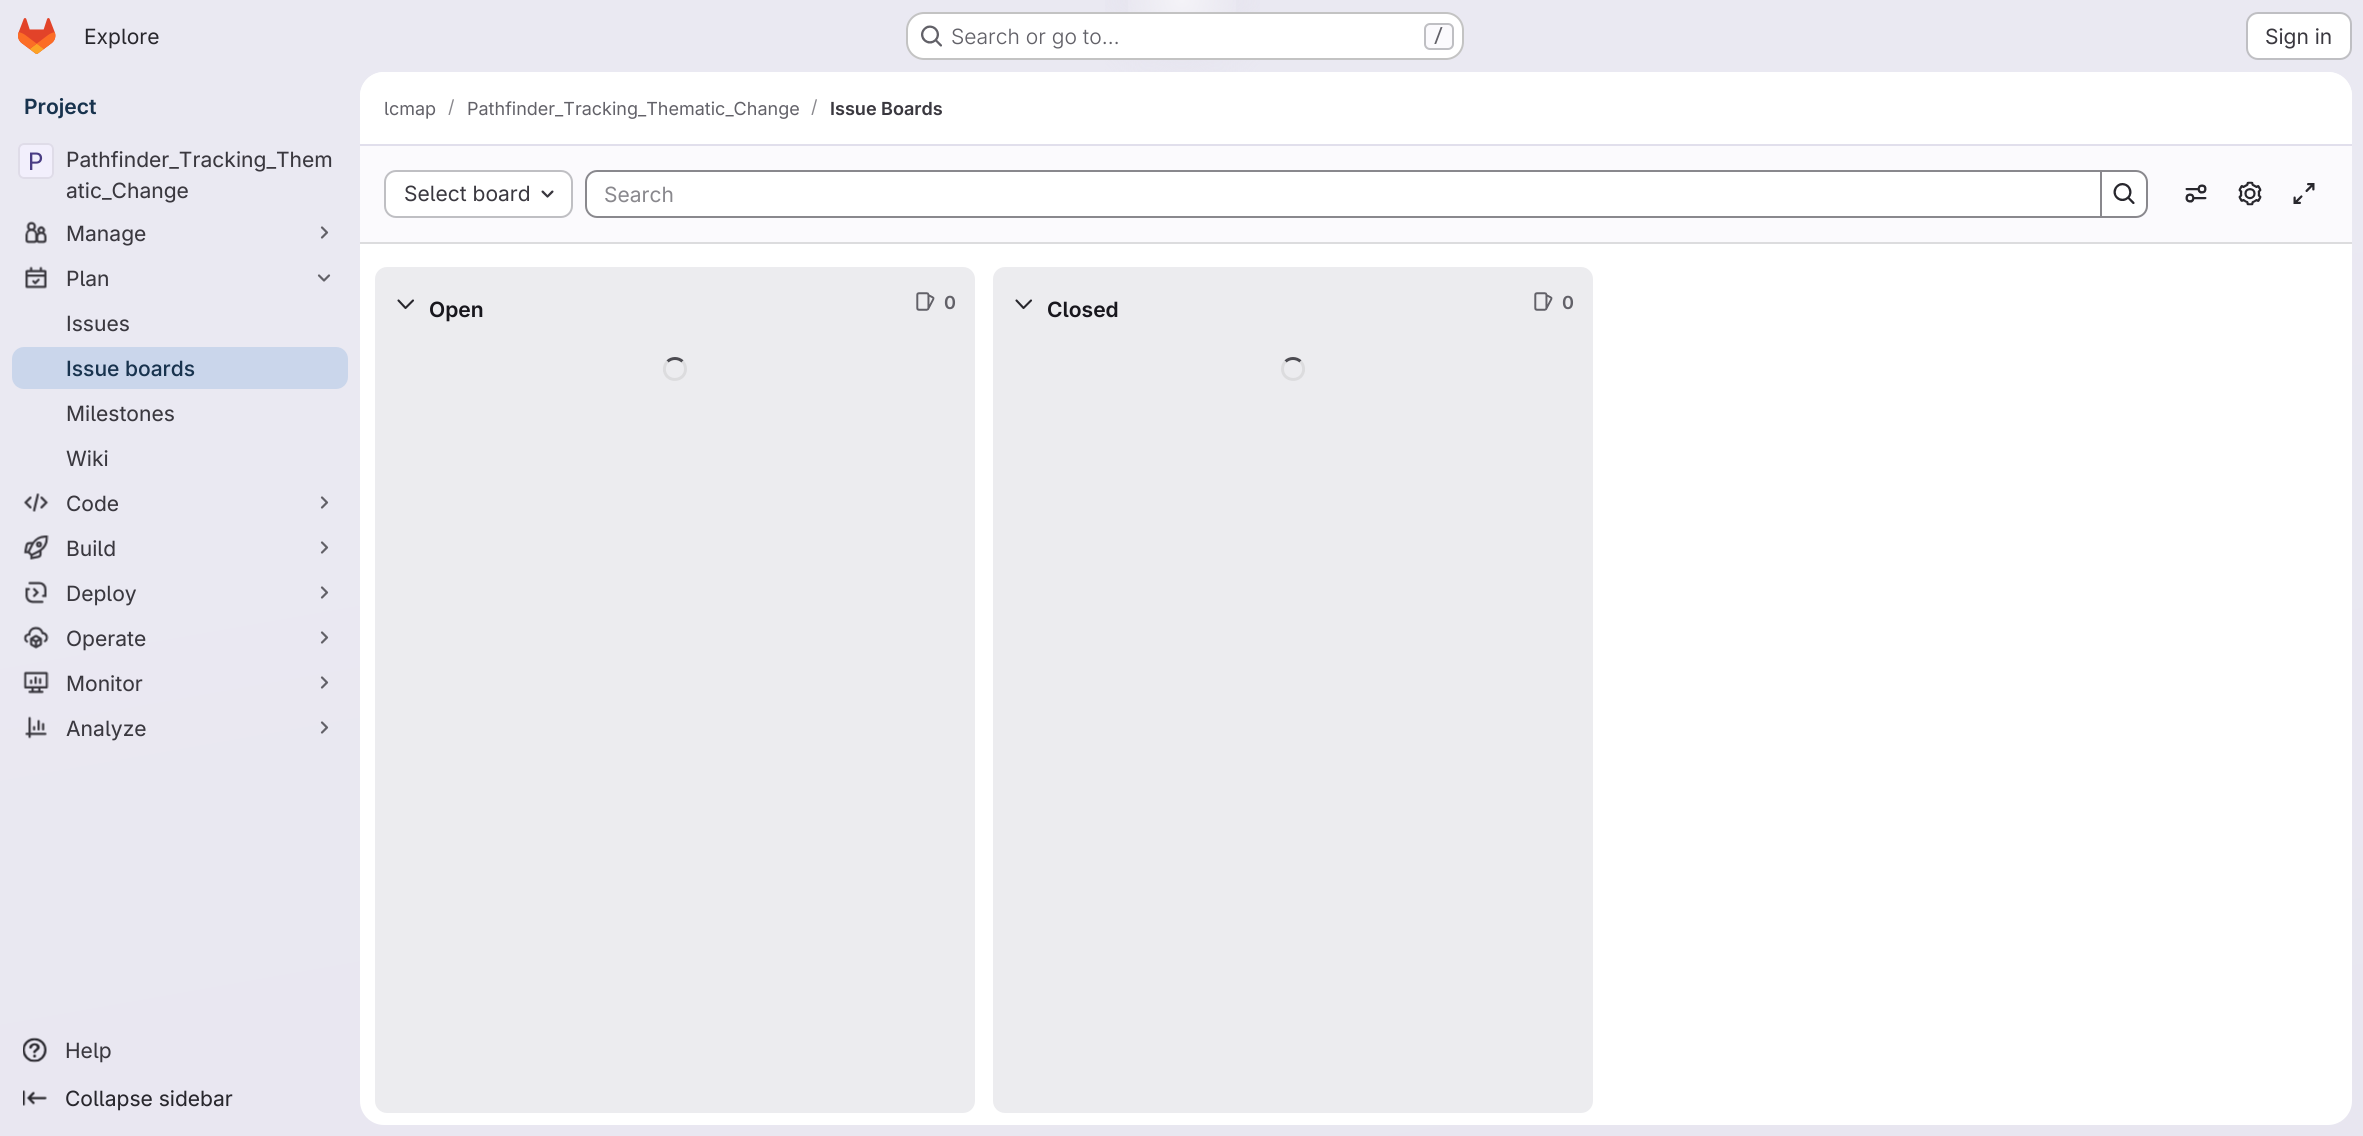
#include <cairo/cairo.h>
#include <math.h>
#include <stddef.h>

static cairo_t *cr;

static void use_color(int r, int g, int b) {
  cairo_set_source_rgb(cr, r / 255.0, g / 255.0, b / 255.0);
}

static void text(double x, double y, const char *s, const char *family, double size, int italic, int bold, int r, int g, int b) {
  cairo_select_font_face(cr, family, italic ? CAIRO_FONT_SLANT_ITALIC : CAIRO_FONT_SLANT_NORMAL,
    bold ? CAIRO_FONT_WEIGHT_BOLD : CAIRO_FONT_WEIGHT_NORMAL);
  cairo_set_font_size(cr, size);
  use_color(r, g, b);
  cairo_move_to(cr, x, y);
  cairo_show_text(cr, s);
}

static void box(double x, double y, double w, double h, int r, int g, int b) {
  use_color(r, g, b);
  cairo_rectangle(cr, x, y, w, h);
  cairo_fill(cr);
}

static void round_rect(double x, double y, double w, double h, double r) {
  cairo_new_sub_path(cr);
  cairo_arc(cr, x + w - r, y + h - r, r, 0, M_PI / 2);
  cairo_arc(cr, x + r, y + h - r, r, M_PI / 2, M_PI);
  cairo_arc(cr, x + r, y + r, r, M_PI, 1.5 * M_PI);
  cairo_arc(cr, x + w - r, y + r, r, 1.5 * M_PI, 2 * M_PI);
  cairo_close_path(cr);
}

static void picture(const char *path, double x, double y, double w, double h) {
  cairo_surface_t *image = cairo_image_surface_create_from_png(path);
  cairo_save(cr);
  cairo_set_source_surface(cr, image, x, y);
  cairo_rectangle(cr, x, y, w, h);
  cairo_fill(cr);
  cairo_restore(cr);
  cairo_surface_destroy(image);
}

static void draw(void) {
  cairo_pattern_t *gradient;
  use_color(255, 255, 255);
  cairo_paint(cr);
  gradient = cairo_pattern_create_linear(1315, 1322, 1049, -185);
  cairo_pattern_add_color_stop_rgba(gradient, 0, 0.91, 0.902, 0.941, 1);
  cairo_pattern_add_color_stop_rgba(gradient, 0.7, 0.918, 0.914, 0.949, 1);
  cairo_set_source(cr, gradient);
  cairo_pattern_destroy(gradient);
  cairo_rectangle(cr, 0, 0, 2363, 1136);
  cairo_fill(cr);
  gradient = cairo_pattern_create_radial(0, 0, 0, 0, 0, 1);
  cairo_pattern_set_matrix(gradient, &(cairo_matrix_t){1.0 / 1182, 0, 0, 1.0 / 1137, -1.0 * 1182 / 1182, -1.0 * 0 / 1137});
  cairo_pattern_add_color_stop_rgba(gradient, 0, 0.894, 0.886, 0.929, 1);
  cairo_pattern_add_color_stop_rgba(gradient, 0.09, 0.894, 0.886, 0.929, 0);
  cairo_set_source(cr, gradient);
  cairo_pattern_destroy(gradient);
  cairo_rectangle(cr, 1105, 0, 155, 72);
  cairo_fill(cr);
  gradient = cairo_pattern_create_radial(1182, 0, 0, 1182, 0, 1640);
  cairo_pattern_add_color_stop_rgba(gradient, 0, 1, 1, 1, 0.6);
  cairo_pattern_add_color_stop_rgba(gradient, 0.04, 1, 1, 1, 0);
  cairo_set_source(cr, gradient);
  cairo_pattern_destroy(gradient);
  cairo_rectangle(cr, 1128, 0, 108, 55);
  cairo_fill(cr);
  picture("img_01.png", 18, 18, 38, 36);
  use_color(255, 255, 255);
  round_rect(906, 12, 558, 48, 18);
  cairo_fill(cr);
  round_rect(907, 13, 556, 46, 17);
  cairo_set_source_rgba(cr, 0.02, 0.02, 0.024, 0.24);
  cairo_stroke(cr);
  picture("img_02.png", 921, 25, 21, 22);
  use_color(251, 250, 253);
  round_rect(1425, 24, 28, 25, 5);
  cairo_fill_preserve(cr);
  use_color(191, 191, 195);
  cairo_stroke(cr);
  use_color(255, 255, 255);
  round_rect(2247, 13, 104, 46, 11);
  cairo_fill_preserve(cr);
  use_color(191, 191, 195);
  cairo_stroke(cr);
  use_color(255, 255, 255);
  round_rect(18, 143, 36, 36, 6);
  cairo_fill(cr);
  cairo_set_source_rgba(cr, 0.796, 0.733, 0.949, 0.24);
  round_rect(18, 143, 36, 36, 6);
  cairo_fill(cr);
  round_rect(19, 144, 34, 34, 5);
  use_color(223, 220, 232);
  cairo_stroke(cr);
  picture("img_03.png", 25, 221, 22, 23);
  cairo_new_path(cr);
  cairo_move_to(cr, 322, 227.5);
  cairo_line_to(cr, 327, 232.5);
  cairo_line_to(cr, 322, 237.5);
  use_color(98, 97, 104);
  cairo_set_line_width(cr, 2.2);
  cairo_set_line_cap(cr, CAIRO_LINE_CAP_ROUND);
  cairo_set_line_join(cr, CAIRO_LINE_JOIN_ROUND);
  cairo_stroke(cr);
  picture("img_04.png", 25, 266, 22, 23);
  cairo_new_path(cr);
  cairo_move_to(cr, 329, 275.5);
  cairo_line_to(cr, 324, 280.5);
  cairo_line_to(cr, 319, 275.5);
  cairo_stroke(cr);
  use_color(202, 214, 235);
  round_rect(12, 347, 336, 42, 12);
  cairo_fill(cr);
  picture("img_05.png", 23, 493, 26, 19);
  cairo_new_path(cr);
  cairo_move_to(cr, 322, 497.5);
  cairo_line_to(cr, 327, 502.5);
  cairo_line_to(cr, 322, 507.5);
  use_color(98, 97, 104);
  cairo_stroke(cr);
  picture("img_06.png", 23, 535, 26, 25);
  cairo_new_path(cr);
  cairo_move_to(cr, 322, 542.5);
  cairo_line_to(cr, 327, 547.5);
  cairo_line_to(cr, 322, 552.5);
  cairo_stroke(cr);
  picture("img_07.png", 25, 581, 22, 23);
  cairo_new_path(cr);
  cairo_move_to(cr, 322, 587.5);
  cairo_line_to(cr, 327, 592.5);
  cairo_line_to(cr, 322, 597.5);
  cairo_stroke(cr);
  picture("img_08.png", 23, 626, 26, 23);
  cairo_new_path(cr);
  cairo_move_to(cr, 322, 632.5);
  cairo_line_to(cr, 327, 637.5);
  cairo_line_to(cr, 322, 642.5);
  cairo_stroke(cr);
  picture("img_09.png", 23, 671, 26, 23);
  cairo_new_path(cr);
  cairo_move_to(cr, 322, 677.5);
  cairo_line_to(cr, 327, 682.5);
  cairo_line_to(cr, 322, 687.5);
  cairo_stroke(cr);
  picture("img_10.png", 25, 716, 22, 23);
  cairo_new_path(cr);
  cairo_move_to(cr, 322, 722.5);
  cairo_line_to(cr, 327, 727.5);
  cairo_line_to(cr, 322, 732.5);
  cairo_stroke(cr);
  picture("img_11.png", 23, 1037, 24, 26);
  picture("img_12.png", 23, 1090, 24, 16);
  use_color(255, 255, 255);
  round_rect(360, 72, 1992, 1053, 24);
  cairo_fill(cr);
  cairo_new_path(cr);
  cairo_move_to(cr, 384, 72);
  cairo_line_to(cr, 2328, 72);
  cairo_curve_to(cr, 2341.5, 72, 2352, 82.5, 2352, 96);
  cairo_line_to(cr, 2352, 146);
  cairo_line_to(cr, 360, 146);
  cairo_line_to(cr, 360, 96);
  cairo_curve_to(cr, 360, 82.5, 370.5, 72, 384, 72);
  cairo_close_path(cr);
  cairo_fill(cr);
  box(360, 144, 1992, 2, 225, 223, 236);
  box(360, 146, 1992, 96, 251, 250, 253);
  box(360, 242, 1992, 2, 220, 220, 222);
  use_color(255, 255, 255);
  round_rect(385, 171, 187, 46, 11);
  cairo_fill_preserve(cr);
  use_color(191, 191, 195);
  cairo_set_line_width(cr, 2);
  cairo_set_line_cap(cr, CAIRO_LINE_CAP_BUTT);
  cairo_set_line_join(cr, CAIRO_LINE_JOIN_MITER);
  cairo_stroke(cr);
  picture("img_13.png", 541, 190, 13, 8);
  use_color(255, 255, 255);
  cairo_new_path(cr);
  cairo_move_to(cr, 597, 171);
  cairo_line_to(cr, 2101, 171);
  cairo_line_to(cr, 2101, 217);
  cairo_line_to(cr, 597, 217);
  cairo_curve_to(cr, 591, 217, 586, 212, 586, 206);
  cairo_line_to(cr, 586, 182);
  cairo_curve_to(cr, 586, 176, 591, 171, 597, 171);
  cairo_close_path(cr);
  cairo_fill_preserve(cr);
  use_color(137, 136, 141);
  cairo_stroke(cr);
  use_color(255, 255, 255);
  cairo_new_path(cr);
  cairo_move_to(cr, 2101, 171);
  cairo_line_to(cr, 2136, 171);
  cairo_curve_to(cr, 2142, 171, 2147, 176, 2147, 182);
  cairo_line_to(cr, 2147, 206);
  cairo_curve_to(cr, 2147, 212, 2142, 217, 2136, 217);
  cairo_line_to(cr, 2101, 217);
  cairo_close_path(cr);
  cairo_fill_preserve(cr);
  use_color(137, 136, 141);
  cairo_stroke(cr);
  picture("img_14.png", 2113, 183, 22, 21);
  picture("img_15.png", 2185, 184, 22, 19);
  picture("img_16.png", 2238, 181, 24, 25);
  picture("img_17.png", 2293, 183, 22, 21);
  use_color(236, 236, 239);
  round_rect(375, 267, 600, 846, 12);
  cairo_fill(cr);
  cairo_new_path(cr);
  cairo_move_to(cr, 398.5, 300.5);
  cairo_line_to(cr, 405.5, 308);
  cairo_line_to(cr, 413, 300.5);
  use_color(40, 39, 45);
  cairo_set_line_width(cr, 2.1);
  cairo_set_line_cap(cr, CAIRO_LINE_CAP_ROUND);
  cairo_set_line_join(cr, CAIRO_LINE_JOIN_ROUND);
  cairo_stroke(cr);
  picture("img_18.png", 916, 292, 19, 19);
  cairo_new_path(cr);
  cairo_move_to(cr, 667.5, 361.5);
  cairo_curve_to(cr, 671.5, 357.5, 678.5, 357.5, 682.5, 361.5);
  use_color(76, 75, 81);
  cairo_set_line_width(cr, 3);
  cairo_set_line_cap(cr, CAIRO_LINE_CAP_BUTT);
  cairo_set_line_join(cr, CAIRO_LINE_JOIN_MITER);
  cairo_stroke(cr);
  cairo_new_path(cr);
  cairo_move_to(cr, 682.5, 361.5);
  cairo_curve_to(cr, 684.5, 363.5, 685.5, 366, 685.5, 369);
  cairo_curve_to(cr, 685.5, 381.5, 667, 383.5, 664.5, 371);
  cairo_curve_to(cr, 664, 367.5, 665, 364, 667.5, 361.5);
  use_color(220, 220, 222);
  cairo_stroke(cr);
  use_color(236, 236, 239);
  round_rect(993, 267, 600, 846, 12);
  cairo_fill(cr);
  cairo_new_path(cr);
  cairo_move_to(cr, 1016.5, 300.5);
  cairo_line_to(cr, 1023.5, 308);
  cairo_line_to(cr, 1031, 300.5);
  use_color(40, 39, 45);
  cairo_set_line_width(cr, 2.1);
  cairo_set_line_cap(cr, CAIRO_LINE_CAP_ROUND);
  cairo_set_line_join(cr, CAIRO_LINE_JOIN_ROUND);
  cairo_stroke(cr);
  picture("img_18.png", 1534, 292, 19, 19);
  cairo_new_path(cr);
  cairo_move_to(cr, 1285.5, 361.5);
  cairo_curve_to(cr, 1289.5, 357.5, 1296.5, 357.5, 1300.5, 361.5);
  use_color(76, 75, 81);
  cairo_set_line_width(cr, 3);
  cairo_set_line_cap(cr, CAIRO_LINE_CAP_BUTT);
  cairo_set_line_join(cr, CAIRO_LINE_JOIN_MITER);
  cairo_stroke(cr);
  cairo_new_path(cr);
  cairo_move_to(cr, 1300.5, 361.5);
  cairo_curve_to(cr, 1303, 364, 1304, 367.5, 1303.5, 371);
  cairo_curve_to(cr, 1301, 383.5, 1282.5, 381.5, 1282.5, 369);
  cairo_curve_to(cr, 1282.5, 366, 1283.5, 363.5, 1285.5, 361.5);
  use_color(220, 220, 222);
  cairo_stroke(cr);
  text(84, 44, "Explore", "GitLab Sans", 21, 0, 0, 40, 39, 45);
  text(951, 44, "Search or go to…", "GitLab Sans Light", 21, 0, 0, 98, 97, 104);
  text(1433, 42, "/", "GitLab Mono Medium", 18, 0, 0, 98, 97, 104);
  text(2265, 44, "Sign in", "GitLab Sans", 21, 0, 0, 58, 56, 63);
  text(24, 114, "Project", "GitLab Sans SemiBold", 21, 0, 0, 24, 51, 78);
  text(28, 170, "P", "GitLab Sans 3", 24, 0, 0, 73, 60, 131);
  text(66, 167, "Pathfinder_Tracking_Them", "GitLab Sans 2", 21, 0, 0, 58, 56, 63);
  text(66, 198, "atic_Change", "GitLab Sans 2", 21, 0, 0, 58, 56, 63);
  text(66, 241, "Manage", "GitLab Sans 2", 21, 0, 0, 58, 56, 63);
  text(66, 286, "Plan", "GitLab Sans 2", 21, 0, 0, 58, 56, 63);
  text(66, 331, "Issues", "GitLab Sans 2", 21, 0, 0, 58, 56, 63);
  text(66, 376, "Issue boards", "GitLab Sans Medium", 21, 0, 0, 24, 51, 78);
  text(66, 421, "Milestones", "GitLab Sans 2", 21, 0, 0, 58, 56, 63);
  text(66, 466, "Wiki", "GitLab Sans 2", 21, 0, 0, 58, 56, 63);
  text(66, 511, "Code", "GitLab Sans 2", 21, 0, 0, 58, 56, 63);
  text(66, 556, "Build", "GitLab Sans 2", 21, 0, 0, 58, 56, 63);
  text(66, 601, "Deploy", "GitLab Sans 2", 21, 0, 0, 58, 56, 63);
  text(66, 646, "Operate", "GitLab Sans 2", 21, 0, 0, 58, 56, 63);
  text(66, 691, "Monitor", "GitLab Sans 2", 21, 0, 0, 58, 56, 63);
  text(66, 736, "Analyze", "GitLab Sans 2", 21, 0, 0, 58, 56, 63);
  text(65, 1058, "Help", "GitLab Sans 2", 21, 0, 0, 58, 56, 63);
  text(65, 1106, "Collapse sidebar", "GitLab Sans 2", 21, 0, 0, 40, 39, 45);
  text(384, 115, "lcmap", "GitLab Sans", 18, 0, 0, 98, 97, 104);
  text(448, 113, "/", "GitLab Sans", 18, 0, 0, 137, 136, 141);
  text(467, 115, "Pathfinder_Tracking_Thematic_Change", "GitLab Sans", 18, 0, 0, 98, 97, 104);
  text(811, 113, "/", "GitLab Sans", 18, 0, 0, 137, 136, 141);
  text(830, 115, "Issue Boards", "GitLab Sans SemiBold", 18, 0, 0, 58, 56, 63);
  text(404, 201, "Select board", "GitLab Sans", 21, 0, 0, 58, 56, 63);
  text(604, 202, "Search", "GitLab Sans", 21, 0, 0, 137, 136, 141);
  text(429, 317, "Open", "GitLab Sans SemiBold", 21, 0, 0, 24, 23, 29);
  text(944, 309, "0", "GitLab Sans SemiBold", 18, 0, 0, 98, 97, 104);
  text(1047, 317, "Closed", "GitLab Sans SemiBold", 21, 0, 0, 24, 23, 29);
  text(1562, 309, "0", "GitLab Sans SemiBold", 18, 0, 0, 98, 97, 104);
}

int main(void) {
  cairo_surface_t *surface = cairo_image_surface_create(CAIRO_FORMAT_RGB24, 2363, 1136);
  cr = cairo_create(surface);
  cairo_font_options_t *options = cairo_font_options_create();
  cairo_font_options_set_hint_metrics(options, CAIRO_HINT_METRICS_OFF);
  cairo_font_options_set_hint_style(options, CAIRO_HINT_STYLE_NONE);
  cairo_set_font_options(cr, options);
  cairo_set_miter_limit(cr, 4);
  draw();
  cairo_surface_write_to_png(surface, "out.png");
  cairo_font_options_destroy(options);
  cairo_destroy(cr);
  cairo_surface_destroy(surface);
  return 0;
}
